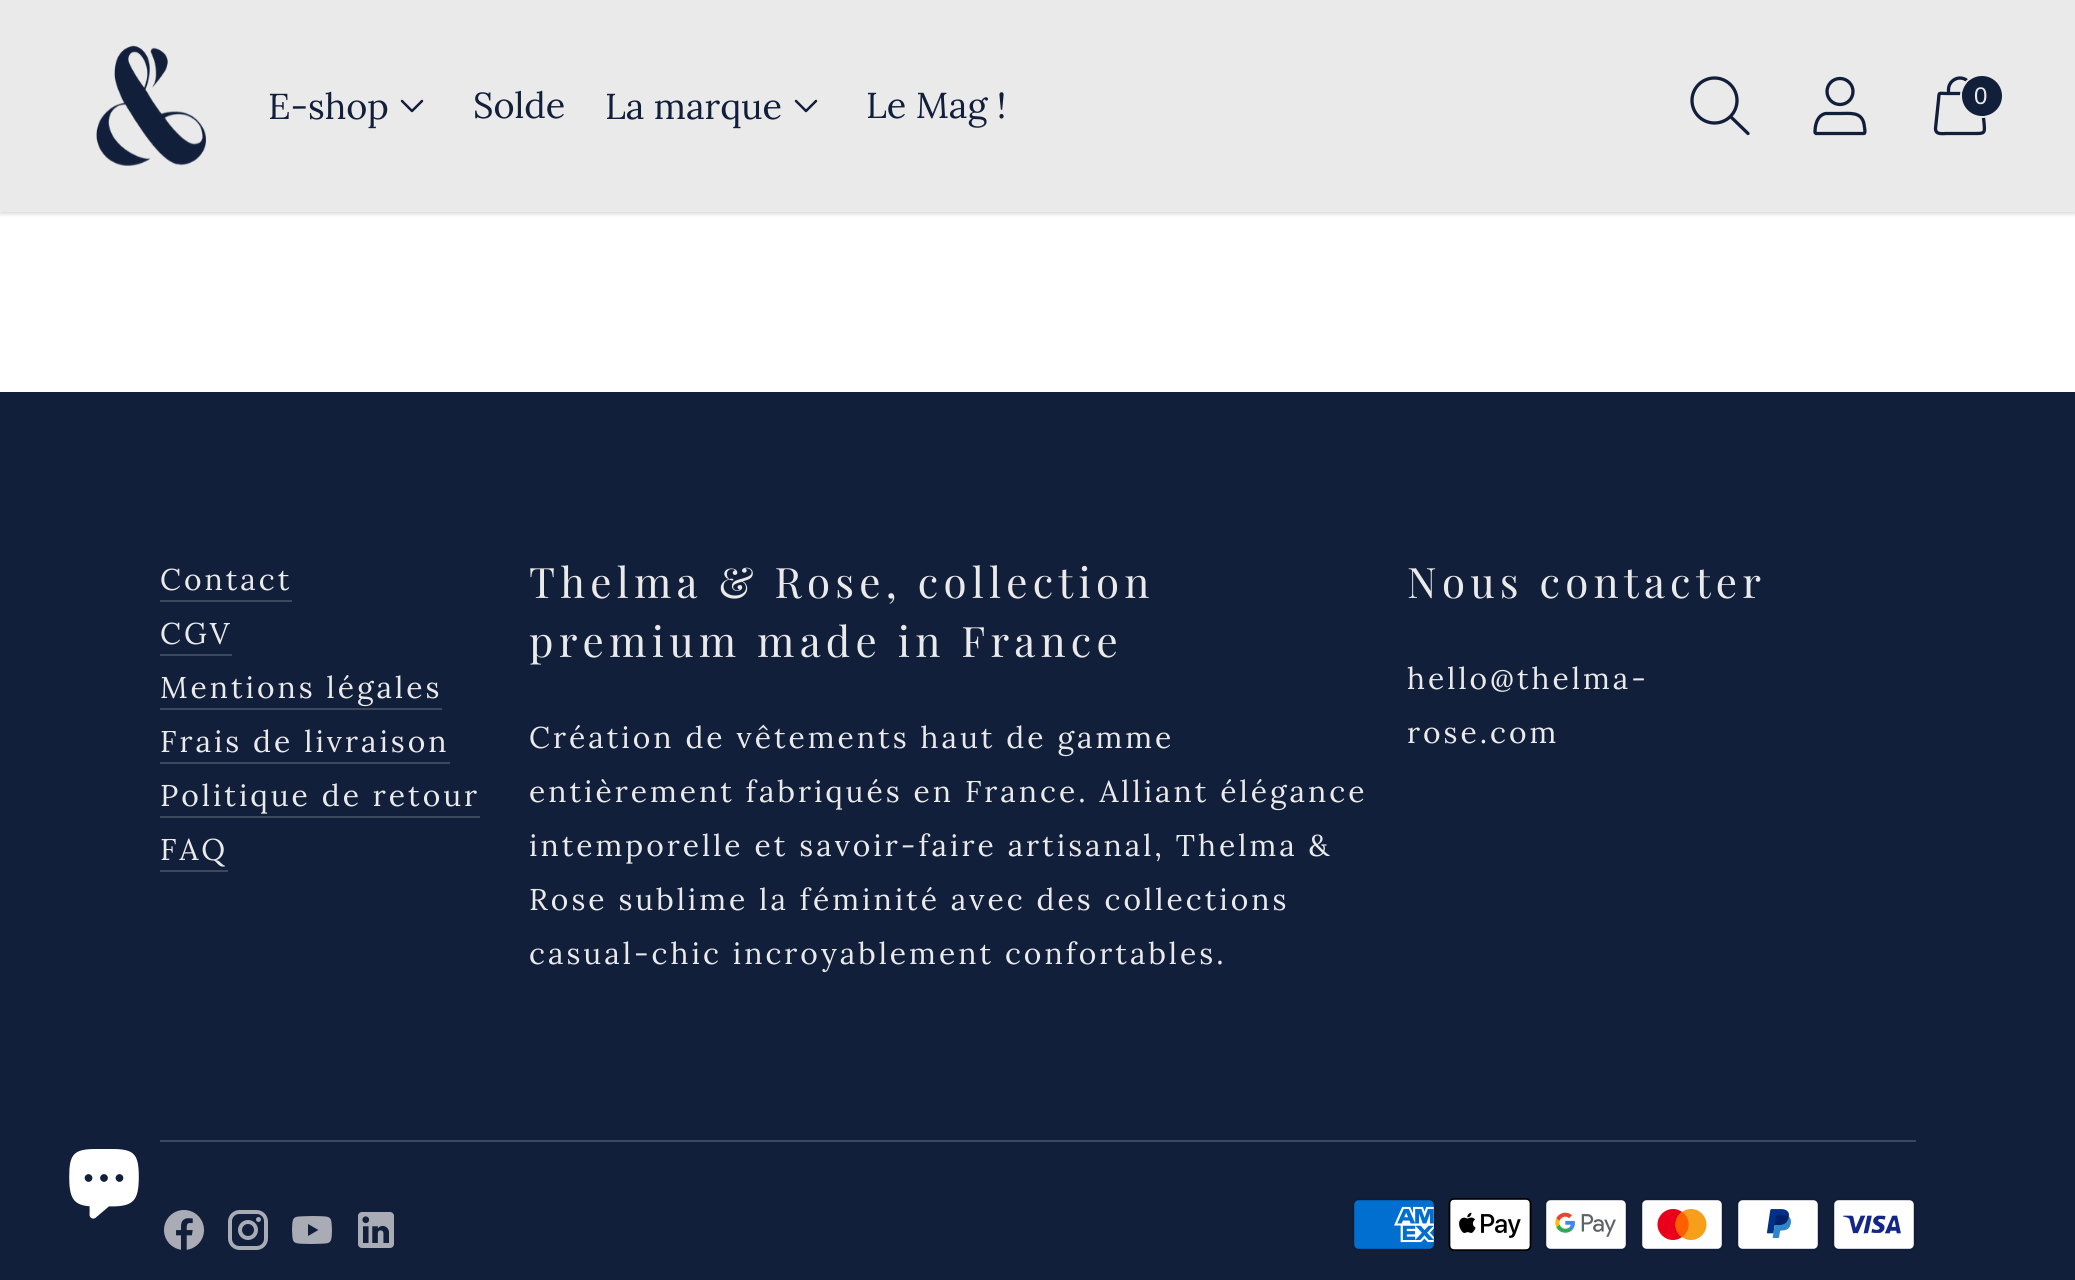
#include <cairo/cairo.h>
#include <math.h>
#include <stddef.h>

static cairo_t *cr;

static void use_color(int r, int g, int b) {
  cairo_set_source_rgb(cr, r / 255.0, g / 255.0, b / 255.0);
}

static void text(double x, double y, const char *s, const char *family, double size, int italic, int bold, int r, int g, int b) {
  cairo_select_font_face(cr, family, italic ? CAIRO_FONT_SLANT_ITALIC : CAIRO_FONT_SLANT_NORMAL,
    bold ? CAIRO_FONT_WEIGHT_BOLD : CAIRO_FONT_WEIGHT_NORMAL);
  cairo_set_font_size(cr, size);
  use_color(r, g, b);
  cairo_move_to(cr, x, y);
  cairo_show_text(cr, s);
}

static void spaced_text(double x, double y, const char *s, double letter, double word) {
  cairo_move_to(cr, x, y);
  while (*s) {
    char ch[5] = {0};
    int n = 0;
    do ch[n++] = *s++; while ((*s & 0xC0) == 0x80);
    cairo_show_text(cr, ch);
    cairo_rel_move_to(cr, letter + word * (*ch == ' '), 0);
  }
}

static void box(double x, double y, double w, double h, int r, int g, int b) {
  use_color(r, g, b);
  cairo_rectangle(cr, x, y, w, h);
  cairo_fill(cr);
}

static void round_rect(double x, double y, double w, double h, double r) {
  cairo_new_sub_path(cr);
  cairo_arc(cr, x + w - r, y + h - r, r, 0, M_PI / 2);
  cairo_arc(cr, x + r, y + h - r, r, M_PI / 2, M_PI);
  cairo_arc(cr, x + r, y + r, r, M_PI, 1.5 * M_PI);
  cairo_arc(cr, x + w - r, y + r, r, 1.5 * M_PI, 2 * M_PI);
  cairo_close_path(cr);
}

static void shadow(double x, double y, double w, double h, double r, double blur, double alpha) {
  cairo_push_group_with_content(cr, CAIRO_CONTENT_ALPHA);
  cairo_set_operator(cr, CAIRO_OPERATOR_SOURCE);
  for (int i = 15; i >= -15 && fmin(w, h) + blur * i / 3 > 0; i -= 2) {
    double e = blur * i / 6;
    cairo_set_source_rgba(cr, 0, 0, 0, alpha * erfc((i - 1) / 8.5) / 2);
    round_rect(x - e, y - e, w + 2 * e, h + 2 * e, fmax(0, fmin(r + e + blur * .6, fmin(w, h) / 2 + e)));
    cairo_fill(cr);
  }
  cairo_pattern_t *soft = cairo_pop_group(cr);
  cairo_mask(cr, soft);
  cairo_pattern_destroy(soft);
}

static void picture(const char *path, double x, double y, double w, double h) {
  cairo_surface_t *image = cairo_image_surface_create_from_png(path);
  cairo_save(cr);
  cairo_set_source_surface(cr, image, x, y);
  cairo_rectangle(cr, x, y, w, h);
  cairo_fill(cr);
  cairo_restore(cr);
  cairo_surface_destroy(image);
}

static void draw(void) {
  use_color(255, 255, 255);
  cairo_paint(cr);
  use_color(0, 0, 0);
  shadow(0, 2, 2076, 212, 0, 2, 0.15);
  box(0, 0, 2075, 212, 235, 234, 234);
  picture("img_01.png", 96, 45, 110, 121);
  cairo_new_path(cr);
  cairo_move_to(cr, 402, 101);
  cairo_line_to(cr, 412, 111);
  cairo_line_to(cr, 422, 101);
  use_color(17, 31, 59);
  cairo_set_line_width(cr, 2.5);
  cairo_set_line_cap(cr, CAIRO_LINE_CAP_ROUND);
  cairo_set_line_join(cr, CAIRO_LINE_JOIN_ROUND);
  cairo_stroke(cr);
  cairo_new_path(cr);
  cairo_move_to(cr, 796, 101);
  cairo_line_to(cr, 806, 111);
  cairo_line_to(cr, 816, 101);
  cairo_stroke(cr);
  cairo_arc(cr, 1714.5, 100.5, 22.5, 0, 2 * M_PI);
  cairo_set_line_width(cr, 3.3);
  cairo_set_line_cap(cr, CAIRO_LINE_CAP_BUTT);
  cairo_set_line_join(cr, CAIRO_LINE_JOIN_MITER);
  cairo_stroke(cr);
  cairo_new_path(cr);
  cairo_move_to(cr, 1731.5, 117.5);
  cairo_line_to(cr, 1748, 133.5);
  cairo_set_line_cap(cr, CAIRO_LINE_CAP_ROUND);
  cairo_set_line_join(cr, CAIRO_LINE_JOIN_ROUND);
  cairo_stroke(cr);
  cairo_arc(cr, 1840, 91.5, 13, 0, 2 * M_PI);
  cairo_set_line_cap(cr, CAIRO_LINE_CAP_BUTT);
  cairo_set_line_join(cr, CAIRO_LINE_JOIN_MITER);
  cairo_stroke(cr);
  cairo_new_path(cr);
  cairo_move_to(cr, 1864, 133.5);
  cairo_curve_to(cr, 1866, 133.5, 1864, 125, 1864, 124);
  cairo_curve_to(cr, 1861.5, 111.5, 1850, 113.5, 1840, 113.5);
  cairo_line_to(cr, 1825.5, 113.5);
  cairo_curve_to(cr, 1817, 115.5, 1815, 125, 1815, 132.5);
  cairo_line_to(cr, 1816, 133.5);
  cairo_close_path(cr);
  cairo_set_line_cap(cr, CAIRO_LINE_CAP_ROUND);
  cairo_set_line_join(cr, CAIRO_LINE_JOIN_ROUND);
  cairo_stroke(cr);
  cairo_new_path(cr);
  cairo_move_to(cr, 1981, 94);
  cairo_line_to(cr, 1984, 122.5);
  cairo_curve_to(cr, 1985, 133.5, 1985, 133.5, 1974, 133.5);
  cairo_line_to(cr, 1946.5, 133.5);
  cairo_curve_to(cr, 1942.5, 133.5, 1935.5, 135, 1935.5, 128.5);
  cairo_line_to(cr, 1938.5, 100);
  cairo_curve_to(cr, 1939.5, 91.5, 1937.5, 93.5, 1946.5, 93.5);
  cairo_line_to(cr, 1960, 93.5);
  cairo_curve_to(cr, 1971.5, 93.5, 1981, 92.5, 1981, 94);
  cairo_close_path(cr);
  cairo_move_to(cr, 1971.5, 93.5);
  cairo_line_to(cr, 1971.5, 89.5);
  cairo_curve_to(cr, 1971.5, 83, 1966, 78, 1960, 78);
  cairo_curve_to(cr, 1954, 78, 1948.5, 83, 1948.5, 89.5);
  cairo_line_to(cr, 1948.5, 93.5);
  cairo_stroke(cr);
  cairo_arc(cr, 1982, 96, 21, 0, 2 * M_PI);
  use_color(235, 234, 234);
  cairo_set_line_width(cr, 2);
  cairo_set_line_cap(cr, CAIRO_LINE_CAP_BUTT);
  cairo_set_line_join(cr, CAIRO_LINE_JOIN_MITER);
  cairo_stroke(cr);
  use_color(17, 31, 59);
  cairo_arc(cr, 1982, 96, 20, 0, 2 * M_PI);
  cairo_fill(cr);
  box(0, 392, 2075, 888, 17, 31, 59);
  box(160, 600, 132, 2, 61, 72, 94);
  box(160, 654, 72, 2, 61, 72, 94);
  box(160, 708, 282, 2, 61, 72, 94);
  box(160, 762, 290, 2, 61, 72, 94);
  box(160, 816, 320, 2, 61, 72, 94);
  box(160, 870, 68, 2, 61, 72, 94);
  box(160, 1140, 1756, 2, 61, 72, 94);
  picture("img_02.png", 164, 1210, 40, 40);
  picture("img_03.png", 228, 1210, 40, 40);
  picture("img_04.png", 292, 1216, 40, 28);
  picture("img_05.png", 358, 1212, 36, 36);
  picture("img_06.png", 1352, 1198, 84, 53);
  picture("img_07.png", 1448, 1198, 84, 53);
  picture("img_08.png", 1544, 1198, 84, 53);
  picture("img_09.png", 1640, 1198, 84, 53);
  picture("img_10.png", 1736, 1198, 84, 53);
  picture("img_11.png", 1832, 1198, 84, 53);
  picture("img_12.png", 69, 1149, 70, 70);
  text(268, 119, "E-shop", "Lora", 36, 0, 0, 17, 31, 59);
  text(473, 118, "Solde", "Lora", 36, 0, 0, 17, 31, 59);
  text(605, 119, "La marque", "Lora", 36, 0, 0, 17, 31, 59);
  text(866, 118, "Le Mag !", "Lora", 36, 0, 0, 17, 31, 59);
  cairo_select_font_face(cr, "Liberation Sans", CAIRO_FONT_SLANT_NORMAL, CAIRO_FONT_WEIGHT_NORMAL);
  cairo_set_font_size(cr, 24);
  use_color(235, 234, 234);
  spaced_text(1974, 104, "0", 3, 0);
  cairo_select_font_face(cr, "Lora", CAIRO_FONT_SLANT_NORMAL, CAIRO_FONT_WEIGHT_NORMAL);
  cairo_set_font_size(cr, 30);
  spaced_text(160, 590, "Contact", 3, 0);
  spaced_text(160, 644, "CGV", 3, 0);
  spaced_text(160, 698, "Mentions légales", 3, 0);
  spaced_text(160, 752, "Frais de livraison", 3, 0);
  spaced_text(160, 806, "Politique de retour", 3, 0);
  spaced_text(160, 860, "FAQ", 3, 0);
  cairo_select_font_face(cr, "Playfair Display", CAIRO_FONT_SLANT_NORMAL, CAIRO_FONT_WEIGHT_NORMAL);
  cairo_set_font_size(cr, 42);
  spaced_text(529, 598, "Thelma & Rose, collection", 5.25, 0);
  spaced_text(529, 657, "premium made in France", 5.25, 0);
  cairo_select_font_face(cr, "Lora", CAIRO_FONT_SLANT_NORMAL, CAIRO_FONT_WEIGHT_NORMAL);
  cairo_set_font_size(cr, 30);
  spaced_text(529, 748, "Création de vêtements haut de gamme", 3, 0);
  spaced_text(529, 802, "entièrement fabriqués en France. Alliant élégance", 3, 0);
  spaced_text(529, 856, "intemporelle et savoir-faire artisanal, Thelma &", 3, 0);
  spaced_text(529, 910, "Rose sublime la féminité avec des collections", 3, 0);
  spaced_text(529, 964, "casual-chic incroyablement confortables.", 3, 0);
  cairo_select_font_face(cr, "Playfair Display", CAIRO_FONT_SLANT_NORMAL, CAIRO_FONT_WEIGHT_NORMAL);
  cairo_set_font_size(cr, 42);
  spaced_text(1407, 598, "Nous contacter", 5.25, 0);
  cairo_select_font_face(cr, "Lora", CAIRO_FONT_SLANT_NORMAL, CAIRO_FONT_WEIGHT_NORMAL);
  cairo_set_font_size(cr, 30);
  spaced_text(1407, 689, "hello@thelma-", 3, 0);
  spaced_text(1407, 743, "rose.com", 3, 0);
}

int main(void) {
  cairo_surface_t *surface = cairo_image_surface_create(CAIRO_FORMAT_RGB24, 2075, 1280);
  cr = cairo_create(surface);
  cairo_font_options_t *options = cairo_font_options_create();
  cairo_font_options_set_hint_metrics(options, CAIRO_HINT_METRICS_OFF);
  cairo_font_options_set_hint_style(options, CAIRO_HINT_STYLE_NONE);
  cairo_set_font_options(cr, options);
  cairo_set_miter_limit(cr, 4);
  draw();
  cairo_surface_write_to_png(surface, "out.png");
  cairo_font_options_destroy(options);
  cairo_destroy(cr);
  cairo_surface_destroy(surface);
  return 0;
}
